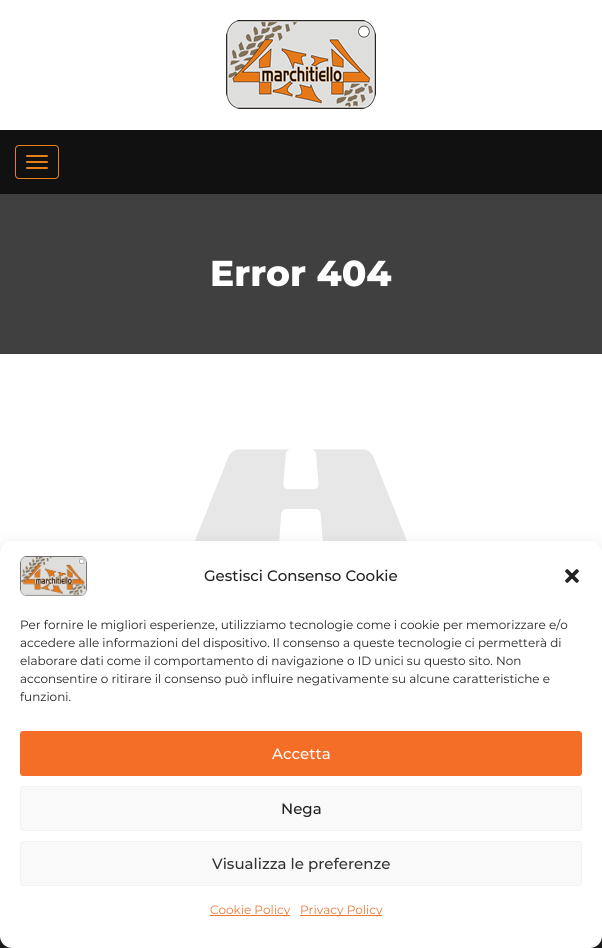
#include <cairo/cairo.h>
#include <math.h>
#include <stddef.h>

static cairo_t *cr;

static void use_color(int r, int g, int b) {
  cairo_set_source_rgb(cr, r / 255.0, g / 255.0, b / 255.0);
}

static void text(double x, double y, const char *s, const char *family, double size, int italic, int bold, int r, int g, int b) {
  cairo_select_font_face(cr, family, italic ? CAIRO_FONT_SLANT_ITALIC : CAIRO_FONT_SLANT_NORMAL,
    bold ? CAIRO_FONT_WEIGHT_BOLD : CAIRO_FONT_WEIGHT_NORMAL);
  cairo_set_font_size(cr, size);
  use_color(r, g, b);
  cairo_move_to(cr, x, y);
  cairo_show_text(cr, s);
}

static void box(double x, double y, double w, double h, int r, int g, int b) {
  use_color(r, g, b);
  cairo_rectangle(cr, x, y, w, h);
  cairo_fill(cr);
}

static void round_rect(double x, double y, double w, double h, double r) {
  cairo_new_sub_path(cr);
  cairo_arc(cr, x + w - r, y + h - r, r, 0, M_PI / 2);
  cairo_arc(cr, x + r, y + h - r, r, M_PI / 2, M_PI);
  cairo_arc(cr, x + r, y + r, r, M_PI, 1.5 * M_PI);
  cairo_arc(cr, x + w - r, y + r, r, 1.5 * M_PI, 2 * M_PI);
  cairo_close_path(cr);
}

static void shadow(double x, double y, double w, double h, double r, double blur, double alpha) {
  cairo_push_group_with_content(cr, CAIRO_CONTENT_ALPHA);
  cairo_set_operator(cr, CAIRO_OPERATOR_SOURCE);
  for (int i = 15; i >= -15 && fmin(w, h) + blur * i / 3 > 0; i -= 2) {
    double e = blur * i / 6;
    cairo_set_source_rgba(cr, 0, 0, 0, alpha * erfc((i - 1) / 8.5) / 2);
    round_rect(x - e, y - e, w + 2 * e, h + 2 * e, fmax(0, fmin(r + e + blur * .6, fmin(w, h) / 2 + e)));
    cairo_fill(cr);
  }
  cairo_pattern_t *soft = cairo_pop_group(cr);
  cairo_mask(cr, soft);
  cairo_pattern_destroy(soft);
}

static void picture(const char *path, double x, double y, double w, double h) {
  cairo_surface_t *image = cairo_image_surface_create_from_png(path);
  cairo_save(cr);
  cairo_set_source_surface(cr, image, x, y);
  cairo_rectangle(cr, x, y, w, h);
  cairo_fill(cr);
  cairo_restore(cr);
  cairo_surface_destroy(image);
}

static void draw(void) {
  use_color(255, 255, 255);
  cairo_paint(cr);
  picture("img_01.png", 226, 20, 150, 89);
  box(0, 130, 602, 64, 17, 17, 17);
  round_rect(15.5, 145.5, 43, 33, 3.5);
  use_color(232, 127, 23);
  cairo_set_line_width(cr, 1);
  cairo_stroke(cr);
  round_rect(26, 155, 22, 2, 1);
  cairo_fill(cr);
  round_rect(26, 161, 22, 2, 1);
  cairo_fill(cr);
  round_rect(26, 167, 22, 2, 1);
  cairo_fill(cr);
  box(0, 194, 602, 160, 64, 64, 64);
  picture("img_02.png", 194, 449, 213, 92);
  box(0, 936, 602, 12, 34, 34, 34);
  use_color(0, 0, 0);
  shadow(0, 547, 602, 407, 12, 3, 0.23);
  shadow(0, 551, 602, 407, 12, 10, 0.19);
  use_color(255, 255, 255);
  round_rect(0, 541, 602, 407, 12);
  cairo_fill(cr);
  picture("img_03.png", 20, 556, 67, 40);
  picture("img_04.png", 565, 569, 14, 14);
  use_color(245, 110, 40);
  round_rect(20.5, 731.5, 561, 44, 2.5);
  cairo_fill_preserve(cr);
  cairo_stroke(cr);
  use_color(249, 249, 249);
  round_rect(20.5, 786.5, 561, 44, 2.5);
  cairo_fill_preserve(cr);
  use_color(242, 242, 242);
  cairo_stroke(cr);
  use_color(249, 249, 249);
  round_rect(20.5, 841.5, 561, 44, 2.5);
  cairo_fill_preserve(cr);
  use_color(242, 242, 242);
  cairo_stroke(cr);
  box(210, 915, 80, 1, 234, 120, 53);
  box(300, 915, 82, 1, 234, 120, 53);
  text(210, 286, "Error 404", "Montserrat ExtraBold", 36, 0, 0, 255, 255, 255);
  text(204, 581, "Gestisci Consenso Cookie", "Montserrat Medium", 15, 0, 0, 34, 34, 34);
  text(20, 629, "Per fornire le migliori esperienze, utilizziamo tecnologie come i cookie per memorizzare e/o", "Montserrat", 12, 0, 0, 34, 34, 34);
  text(20, 647, "accedere alle informazioni del dispositivo. Il consenso a queste tecnologie ci permetterà di", "Montserrat", 12, 0, 0, 34, 34, 34);
  text(20, 665, "elaborare dati come il comportamento di navigazione o ID unici su questo sito. Non", "Montserrat", 12, 0, 0, 34, 34, 34);
  text(20, 683, "acconsentire o ritirare il consenso può influire negativamente su alcune caratteristiche e", "Montserrat", 12, 0, 0, 34, 34, 34);
  text(20, 701, "funzioni.", "Montserrat", 12, 0, 0, 34, 34, 34);
  text(272, 759, "Accetta", "Montserrat Medium", 15, 0, 0, 255, 255, 255);
  text(281, 814, "Nega", "Montserrat Medium", 15, 0, 0, 34, 34, 34);
  text(212, 869, "Visualizza le preferenze", "Montserrat Medium", 15, 0, 0, 51, 51, 51);
  text(210, 914, "Cookie Policy", "Montserrat", 12, 0, 0, 234, 120, 53);
  text(300, 914, "Privacy Policy", "Montserrat", 12, 0, 0, 234, 120, 53);
}

int main(void) {
  cairo_surface_t *surface = cairo_image_surface_create(CAIRO_FORMAT_RGB24, 602, 948);
  cr = cairo_create(surface);
  cairo_font_options_t *options = cairo_font_options_create();
  cairo_font_options_set_hint_metrics(options, CAIRO_HINT_METRICS_OFF);
  cairo_font_options_set_hint_style(options, CAIRO_HINT_STYLE_NONE);
  cairo_set_font_options(cr, options);
  cairo_set_miter_limit(cr, 4);
  draw();
  cairo_surface_write_to_png(surface, "out.png");
  cairo_font_options_destroy(options);
  cairo_destroy(cr);
  cairo_surface_destroy(surface);
  return 0;
}
